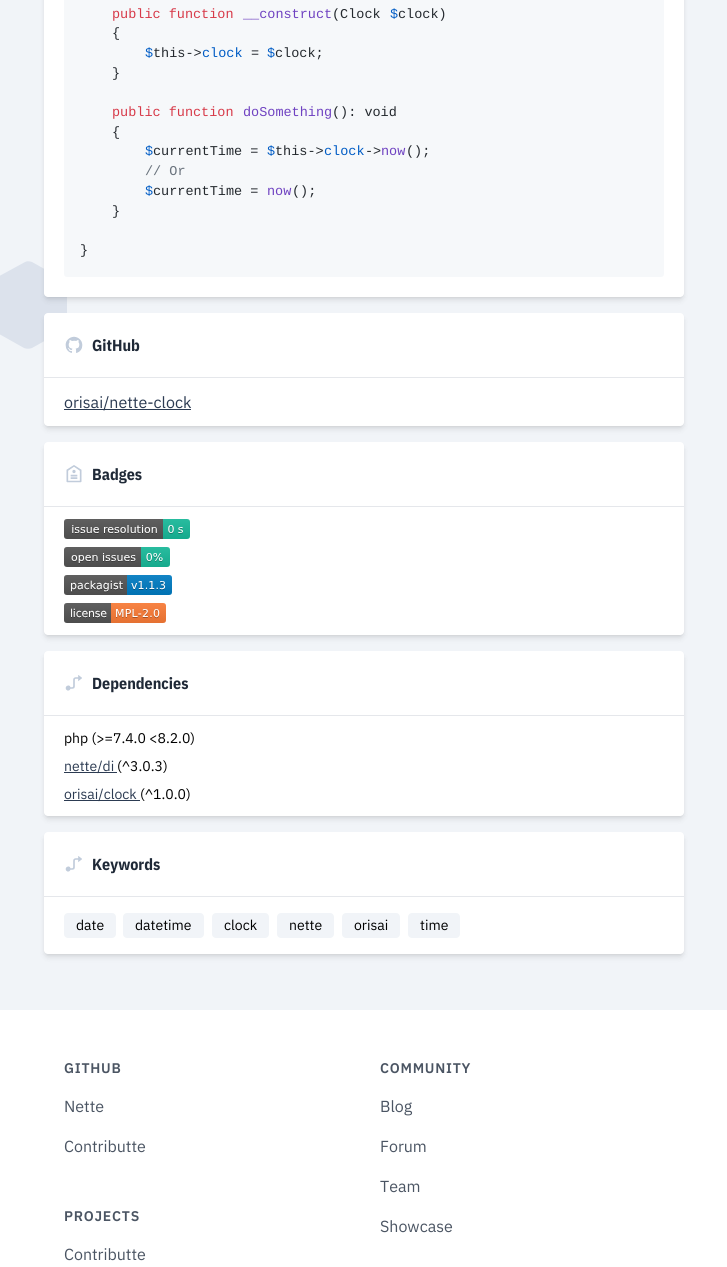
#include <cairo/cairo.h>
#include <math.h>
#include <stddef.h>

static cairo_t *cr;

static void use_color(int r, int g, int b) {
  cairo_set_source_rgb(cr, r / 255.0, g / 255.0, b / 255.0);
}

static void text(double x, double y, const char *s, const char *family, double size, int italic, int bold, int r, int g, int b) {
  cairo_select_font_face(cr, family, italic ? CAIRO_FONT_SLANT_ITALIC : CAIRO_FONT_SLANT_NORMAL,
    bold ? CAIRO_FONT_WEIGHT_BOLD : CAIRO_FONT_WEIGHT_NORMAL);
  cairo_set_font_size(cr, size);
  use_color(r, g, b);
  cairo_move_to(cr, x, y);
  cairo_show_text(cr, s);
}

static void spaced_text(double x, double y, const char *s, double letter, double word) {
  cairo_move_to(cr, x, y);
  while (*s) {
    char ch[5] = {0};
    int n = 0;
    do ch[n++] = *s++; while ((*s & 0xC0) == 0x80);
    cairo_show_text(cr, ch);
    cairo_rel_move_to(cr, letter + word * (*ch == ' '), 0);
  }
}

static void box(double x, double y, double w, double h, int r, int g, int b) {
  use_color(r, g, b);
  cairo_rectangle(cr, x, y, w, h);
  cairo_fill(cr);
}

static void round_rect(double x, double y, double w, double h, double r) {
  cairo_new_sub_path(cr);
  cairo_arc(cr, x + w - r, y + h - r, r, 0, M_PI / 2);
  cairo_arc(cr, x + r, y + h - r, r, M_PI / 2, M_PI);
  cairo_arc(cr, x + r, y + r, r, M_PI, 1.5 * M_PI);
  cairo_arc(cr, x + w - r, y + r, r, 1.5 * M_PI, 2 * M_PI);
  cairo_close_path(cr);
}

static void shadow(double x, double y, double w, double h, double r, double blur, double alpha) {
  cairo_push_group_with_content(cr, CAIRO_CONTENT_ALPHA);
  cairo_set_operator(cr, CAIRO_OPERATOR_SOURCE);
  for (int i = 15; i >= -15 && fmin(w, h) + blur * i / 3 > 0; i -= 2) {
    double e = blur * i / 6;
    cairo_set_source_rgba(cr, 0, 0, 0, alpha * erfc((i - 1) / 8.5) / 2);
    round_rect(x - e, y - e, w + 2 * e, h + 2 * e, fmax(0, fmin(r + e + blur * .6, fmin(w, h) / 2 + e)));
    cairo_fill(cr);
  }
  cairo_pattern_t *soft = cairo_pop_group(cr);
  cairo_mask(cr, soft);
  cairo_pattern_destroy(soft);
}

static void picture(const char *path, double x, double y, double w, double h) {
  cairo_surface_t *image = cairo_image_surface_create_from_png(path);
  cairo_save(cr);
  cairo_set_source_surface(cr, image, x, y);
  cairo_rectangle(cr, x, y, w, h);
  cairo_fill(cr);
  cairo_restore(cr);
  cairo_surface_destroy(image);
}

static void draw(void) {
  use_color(241, 244, 248);
  cairo_paint(cr);
  use_color(220, 226, 236);
  cairo_new_path(cr);
  cairo_move_to(cr, -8, 280);
  cairo_curve_to(cr, -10, 282, -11, 284, -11, 286);
  cairo_line_to(cr, -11, 324);
  cairo_curve_to(cr, -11, 326, -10, 328, -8, 330);
  cairo_line_to(cr, 24, 348);
  cairo_curve_to(cr, 27, 349, 29, 349, 32, 348);
  cairo_line_to(cr, 64, 330);
  cairo_curve_to(cr, 66, 328, 67, 326, 67, 324);
  cairo_line_to(cr, 67, 286);
  cairo_curve_to(cr, 67, 284, 66, 282, 64, 280);
  cairo_line_to(cr, 32, 262);
  cairo_curve_to(cr, 29, 261, 27, 261, 25, 262);
  cairo_close_path(cr);
  cairo_fill(cr);
  use_color(0, 0, 0);
  shadow(46, -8, 636, 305, 2, 2, 0.1);
  shadow(45, -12, 638, 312, 3, 3, 0.1);
  use_color(255, 255, 255);
  round_rect(44, -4, 640, 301, 4);
  cairo_fill(cr);
  use_color(246, 248, 250);
  round_rect(64, -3, 600, 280, 3);
  cairo_fill(cr);
  use_color(0, 0, 0);
  shadow(46, 317, 636, 109, 2, 2, 0.1);
  shadow(45, 318, 638, 111, 3, 3, 0.1);
  use_color(255, 255, 255);
  round_rect(44, 313, 640, 113, 4);
  cairo_fill(cr);
  picture("img_01.png", 65, 336, 18, 17);
  box(44, 377, 640, 1, 229, 231, 235);
  box(64, 409, 127, 1, 44, 59, 82);
  use_color(0, 0, 0);
  shadow(46, 446, 636, 189, 2, 2, 0.1);
  shadow(45, 447, 638, 191, 3, 3, 0.1);
  use_color(255, 255, 255);
  round_rect(44, 442, 640, 193, 4);
  cairo_fill(cr);
  picture("img_02.png", 66, 465, 16, 18);
  box(44, 506, 640, 1, 229, 231, 235);
  picture("img_03.png", 64, 519, 126, 20);
  picture("img_04.png", 64, 547, 106, 20);
  picture("img_05.png", 64, 575, 108, 20);
  picture("img_06.png", 64, 603, 102, 20);
  use_color(0, 0, 0);
  shadow(46, 655, 636, 161, 2, 2, 0.1);
  shadow(45, 656, 638, 163, 3, 3, 0.1);
  use_color(255, 255, 255);
  round_rect(44, 651, 640, 165, 4);
  cairo_fill(cr);
  picture("img_07.png", 65, 675, 17, 16);
  box(44, 715, 640, 1, 229, 231, 235);
  box(64, 772, 53, 1, 44, 59, 82);
  box(64, 800, 76, 1, 44, 59, 82);
  use_color(0, 0, 0);
  shadow(46, 836, 636, 118, 2, 2, 0.1);
  shadow(45, 837, 638, 120, 3, 3, 0.1);
  use_color(255, 255, 255);
  round_rect(44, 832, 640, 122, 4);
  cairo_fill(cr);
  picture("img_07.png", 65, 856, 17, 16);
  box(44, 896, 640, 1, 229, 231, 235);
  use_color(241, 244, 248);
  round_rect(64, 913, 52, 25, 4);
  cairo_fill(cr);
  round_rect(123, 913, 81, 25, 4);
  cairo_fill(cr);
  round_rect(212, 913, 57, 25, 4);
  cairo_fill(cr);
  round_rect(277, 913, 57, 25, 4);
  cairo_fill(cr);
  round_rect(342, 913, 58, 25, 4);
  cairo_fill(cr);
  round_rect(408, 913, 52, 25, 4);
  cairo_fill(cr);
  box(0, 1010, 727, 257, 255, 255, 255);
  text(112, 18, "public function", "Liberation Mono", 13.5, 0, 0, 215, 58, 73);
  text(243, 18, "__construct", "Liberation Mono", 13.5, 0, 0, 111, 66, 193);
  text(332, 18, "(Clock", "Liberation Mono", 13.5, 0, 0, 36, 41, 46);
  text(390, 18, "$", "Liberation Mono", 13.5, 0, 0, 0, 92, 197);
  text(398, 18, "clock)", "Liberation Mono", 13.5, 0, 0, 36, 41, 46);
  text(112, 37, "{", "Liberation Mono", 13.5, 0, 0, 36, 41, 46);
  text(145, 57, "$", "Liberation Mono", 13.5, 0, 0, 0, 92, 197);
  text(153, 57, "this->", "Liberation Mono", 13.5, 0, 0, 36, 41, 46);
  text(202, 57, "clock", "Liberation Mono", 13.5, 0, 0, 0, 92, 197);
  text(251, 57, "=", "Liberation Mono", 13.5, 0, 0, 36, 41, 46);
  text(267, 57, "$", "Liberation Mono", 13.5, 0, 0, 0, 92, 197);
  text(275, 57, "clock;", "Liberation Mono", 13.5, 0, 0, 36, 41, 46);
  text(112, 77, "}", "Liberation Mono", 13.5, 0, 0, 36, 41, 46);
  text(112, 116, "public function", "Liberation Mono", 13.5, 0, 0, 215, 58, 73);
  text(243, 116, "doSomething", "Liberation Mono", 13.5, 0, 0, 111, 66, 193);
  text(332, 116, "(): void", "Liberation Mono", 13.5, 0, 0, 36, 41, 46);
  text(112, 136, "{", "Liberation Mono", 13.5, 0, 0, 36, 41, 46);
  text(145, 155, "$", "Liberation Mono", 13.5, 0, 0, 0, 92, 197);
  text(153, 155, "currentTime =", "Liberation Mono", 13.5, 0, 0, 36, 41, 46);
  text(267, 155, "$", "Liberation Mono", 13.5, 0, 0, 0, 92, 197);
  text(275, 155, "this->", "Liberation Mono", 13.5, 0, 0, 36, 41, 46);
  text(324, 155, "clock", "Liberation Mono", 13.5, 0, 0, 0, 92, 197);
  text(365, 155, "->", "Liberation Mono", 13.5, 0, 0, 36, 41, 46);
  text(381, 155, "now", "Liberation Mono", 13.5, 0, 0, 111, 66, 193);
  text(406, 155, "();", "Liberation Mono", 13.5, 0, 0, 36, 41, 46);
  text(145, 175, "// Or", "Liberation Mono", 13.5, 0, 0, 106, 115, 125);
  text(145, 195, "$", "Liberation Mono", 13.5, 0, 0, 0, 92, 197);
  text(153, 195, "currentTime =", "Liberation Mono", 13.5, 0, 0, 36, 41, 46);
  text(267, 195, "now", "Liberation Mono", 13.5, 0, 0, 111, 66, 193);
  text(292, 195, "();", "Liberation Mono", 13.5, 0, 0, 36, 41, 46);
  text(112, 215, "}", "Liberation Mono", 13.5, 0, 0, 36, 41, 46);
  text(80, 254, "}", "Liberation Mono", 13.5, 0, 0, 36, 41, 46);
  text(92, 351, "GitHub", "IBM Plex Sans Condensed", 16, 0, 1, 31, 41, 55);
  text(64, 408, "orisai/nette-clock", "IBM Plex Sans", 16, 0, 0, 44, 59, 82);
  text(92, 480, "Badges", "IBM Plex Sans Condensed", 16, 0, 1, 31, 41, 55);
  text(92, 689, "Dependencies", "IBM Plex Sans Condensed", 16, 0, 1, 31, 41, 55);
  text(64, 743, "php (>=7.4.0 <8.2.0)", "IBM Plex Sans", 14, 0, 0, 0, 0, 0);
  text(64, 771, "nette/di", "IBM Plex Sans", 14, 0, 0, 44, 59, 82);
  text(117, 771, "(^3.0.3)", "IBM Plex Sans", 14, 0, 0, 0, 0, 0);
  text(64, 799, "orisai/clock", "IBM Plex Sans", 14, 0, 0, 44, 59, 82);
  text(140, 799, "(^1.0.0)", "IBM Plex Sans", 14, 0, 0, 0, 0, 0);
  text(92, 870, "Keywords", "IBM Plex Sans Condensed", 16, 0, 1, 31, 41, 55);
  text(76, 930, "date", "IBM Plex Sans", 14, 0, 0, 0, 0, 0);
  text(135, 930, "datetime", "IBM Plex Sans", 14, 0, 0, 0, 0, 0);
  text(224, 930, "clock", "IBM Plex Sans", 14, 0, 0, 0, 0, 0);
  text(289, 930, "nette", "IBM Plex Sans", 14, 0, 0, 0, 0, 0);
  text(354, 930, "orisai", "IBM Plex Sans", 14, 0, 0, 0, 0, 0);
  text(420, 930, "time", "IBM Plex Sans", 14, 0, 0, 0, 0, 0);
  cairo_select_font_face(cr, "IBM Plex Sans SemiBold", CAIRO_FONT_SLANT_NORMAL, CAIRO_FONT_WEIGHT_NORMAL);
  use_color(75, 85, 99);
  spaced_text(64, 1073, "GITHUB", 0.75, 0);
  text(64, 1112, "Nette", "IBM Plex Sans", 16, 0, 0, 75, 85, 99);
  text(64, 1152, "Contributte", "IBM Plex Sans", 16, 0, 0, 75, 85, 99);
  cairo_select_font_face(cr, "IBM Plex Sans SemiBold", CAIRO_FONT_SLANT_NORMAL, CAIRO_FONT_WEIGHT_NORMAL);
  cairo_set_font_size(cr, 14);
  spaced_text(64, 1221, "PROJECTS", 0.75, 0);
  text(64, 1260, "Contributte", "IBM Plex Sans", 16, 0, 0, 75, 85, 99);
  cairo_select_font_face(cr, "IBM Plex Sans SemiBold", CAIRO_FONT_SLANT_NORMAL, CAIRO_FONT_WEIGHT_NORMAL);
  cairo_set_font_size(cr, 14);
  spaced_text(380, 1073, "COMMUNITY", 0.75, 0);
  text(380, 1112, "Blog", "IBM Plex Sans", 16, 0, 0, 75, 85, 99);
  text(380, 1152, "Forum", "IBM Plex Sans", 16, 0, 0, 75, 85, 99);
  text(380, 1192, "Team", "IBM Plex Sans", 16, 0, 0, 75, 85, 99);
  text(380, 1232, "Showcase", "IBM Plex Sans", 16, 0, 0, 75, 85, 99);
}

int main(void) {
  cairo_surface_t *surface = cairo_image_surface_create(CAIRO_FORMAT_RGB24, 727, 1267);
  cr = cairo_create(surface);
  cairo_font_options_t *options = cairo_font_options_create();
  cairo_font_options_set_hint_metrics(options, CAIRO_HINT_METRICS_OFF);
  cairo_font_options_set_hint_style(options, CAIRO_HINT_STYLE_NONE);
  cairo_set_font_options(cr, options);
  cairo_set_miter_limit(cr, 4);
  draw();
  cairo_surface_write_to_png(surface, "out.png");
  cairo_font_options_destroy(options);
  cairo_destroy(cr);
  cairo_surface_destroy(surface);
  return 0;
}
